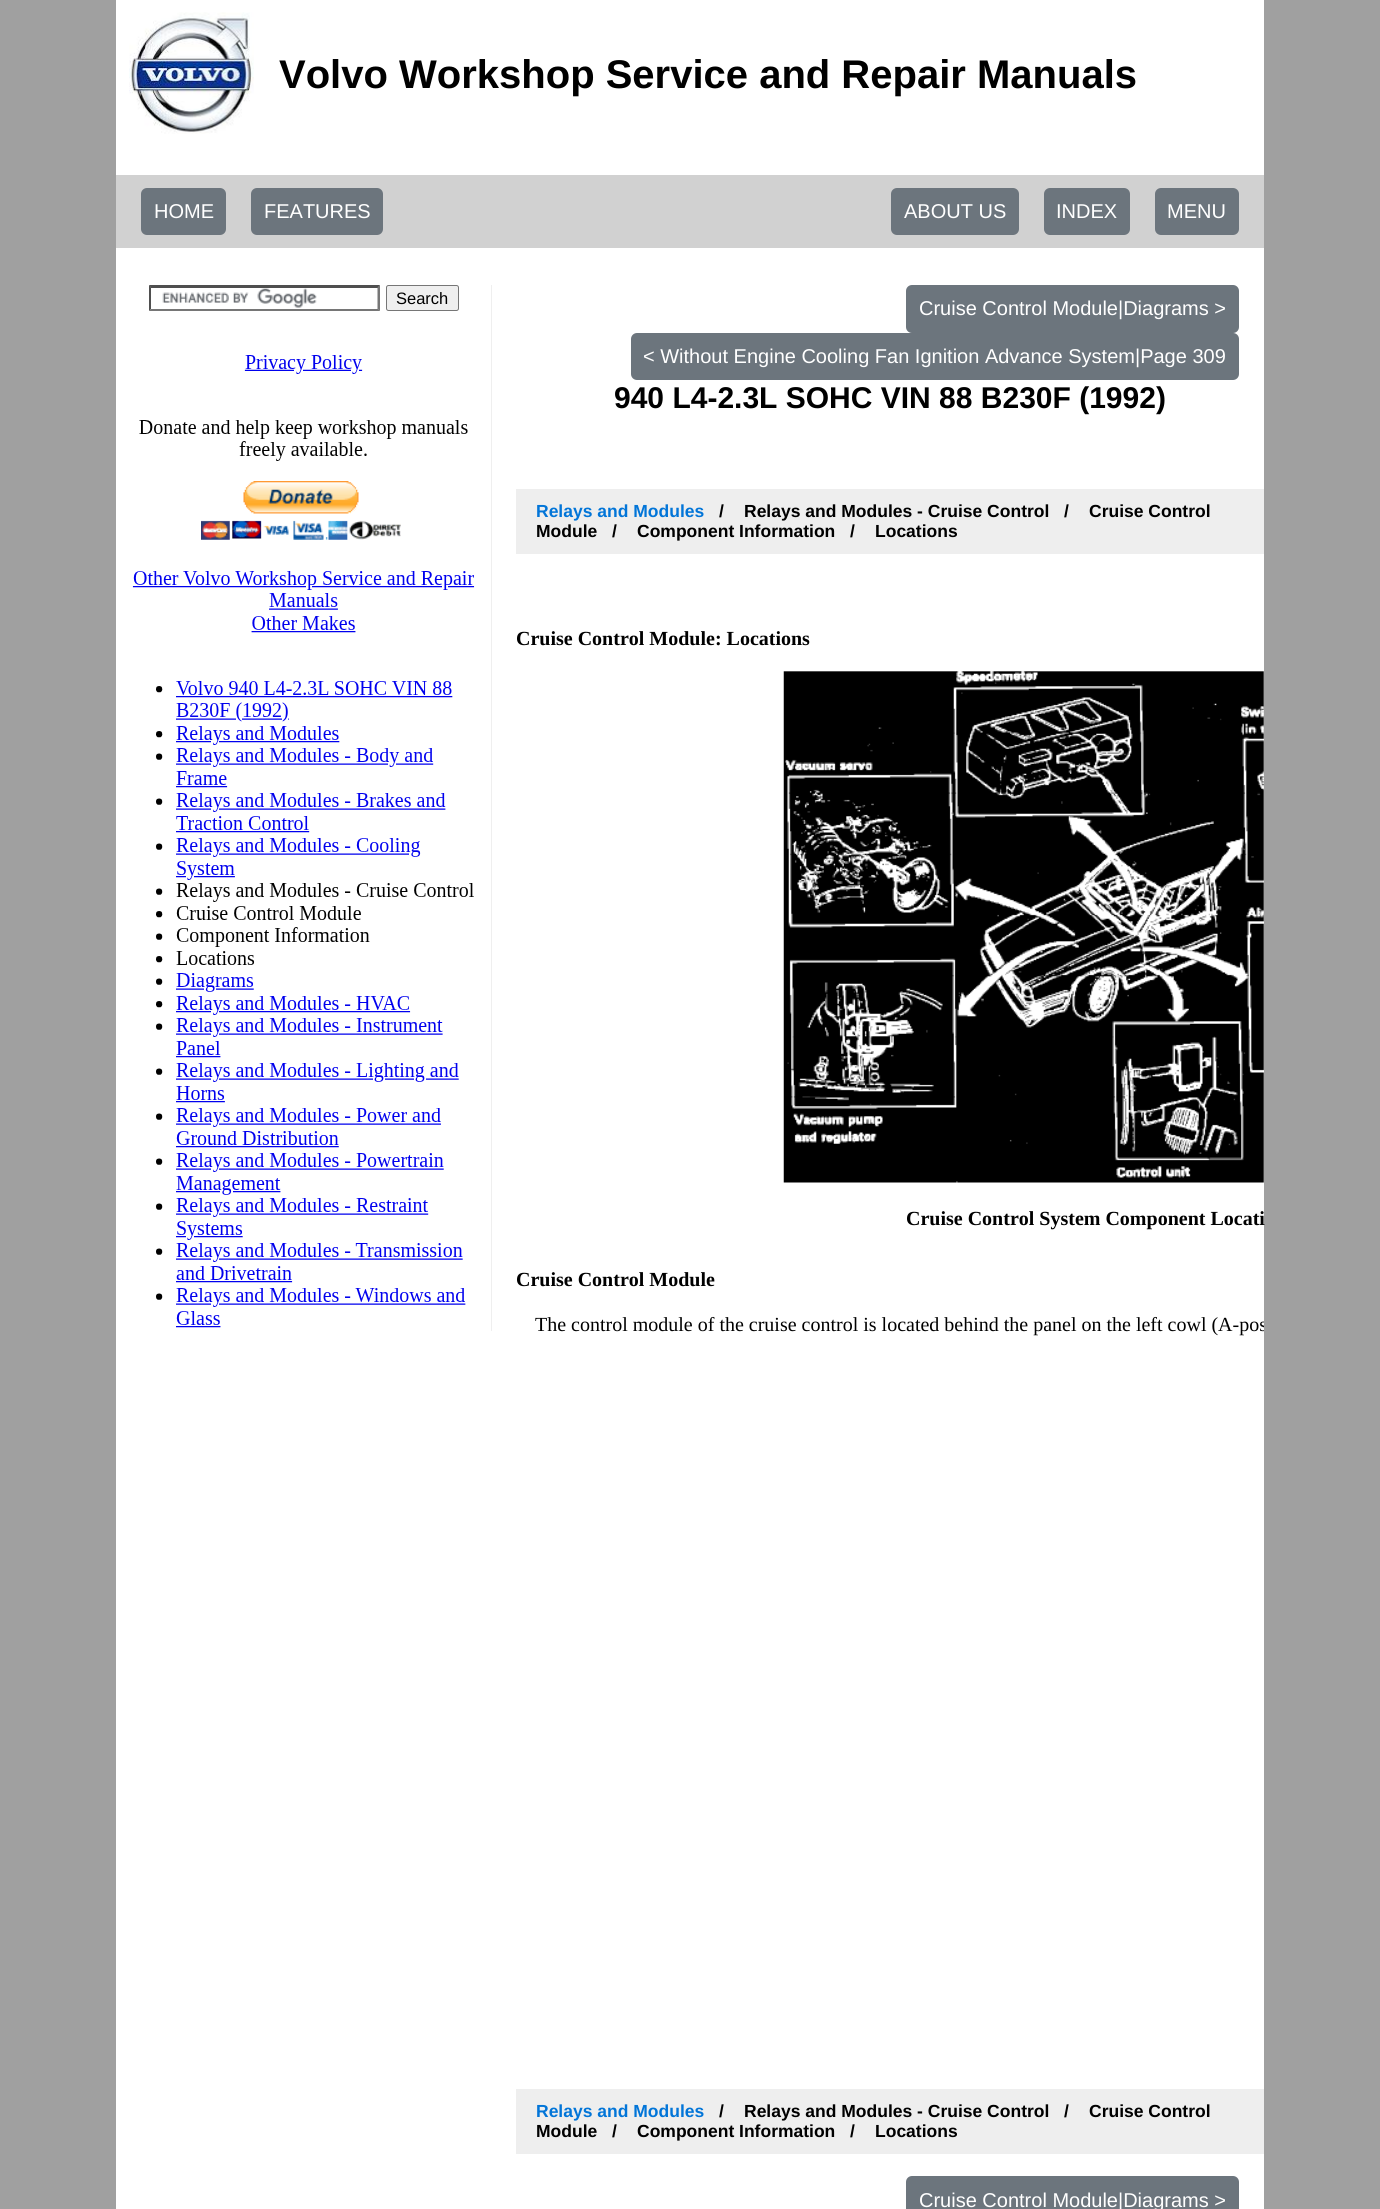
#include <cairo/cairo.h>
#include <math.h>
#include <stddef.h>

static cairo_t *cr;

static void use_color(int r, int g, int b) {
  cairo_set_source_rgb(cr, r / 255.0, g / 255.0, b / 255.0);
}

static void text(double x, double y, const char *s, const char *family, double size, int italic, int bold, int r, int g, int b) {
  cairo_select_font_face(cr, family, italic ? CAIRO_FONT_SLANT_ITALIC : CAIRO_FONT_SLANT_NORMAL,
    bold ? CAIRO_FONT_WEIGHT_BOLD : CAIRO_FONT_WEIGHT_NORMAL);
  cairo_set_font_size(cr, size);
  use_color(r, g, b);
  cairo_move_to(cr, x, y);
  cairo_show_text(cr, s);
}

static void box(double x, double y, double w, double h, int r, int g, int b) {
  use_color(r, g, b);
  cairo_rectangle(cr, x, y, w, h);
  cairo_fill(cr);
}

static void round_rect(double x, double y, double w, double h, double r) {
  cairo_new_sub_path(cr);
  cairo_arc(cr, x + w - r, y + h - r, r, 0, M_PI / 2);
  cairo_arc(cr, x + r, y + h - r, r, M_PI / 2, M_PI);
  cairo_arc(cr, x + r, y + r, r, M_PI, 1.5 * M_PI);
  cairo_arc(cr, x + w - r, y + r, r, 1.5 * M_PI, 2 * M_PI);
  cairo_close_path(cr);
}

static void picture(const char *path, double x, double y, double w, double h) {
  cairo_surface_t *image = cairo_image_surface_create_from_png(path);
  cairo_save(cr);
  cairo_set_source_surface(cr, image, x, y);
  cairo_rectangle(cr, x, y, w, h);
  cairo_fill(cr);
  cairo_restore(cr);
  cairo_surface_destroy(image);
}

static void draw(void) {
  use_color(160, 160, 160);
  cairo_paint(cr);
  box(116, 0, 1148, 2209, 255, 255, 255);
  picture("img_01.png", 129, 12, 125, 122);
  box(116, 175, 1148, 73, 209, 209, 209);
  use_color(108, 117, 125);
  round_rect(141, 188, 85, 47, 6);
  cairo_fill(cr);
  round_rect(251, 188, 132, 47, 6);
  cairo_fill(cr);
  round_rect(891, 188, 128, 47, 6);
  cairo_fill(cr);
  round_rect(1044, 188, 86, 47, 6);
  cairo_fill(cr);
  round_rect(1155, 188, 84, 47, 6);
  cairo_fill(cr);
  box(491, 285, 1, 1046, 239, 239, 239);
  picture("img_02.png", 162, 288, 155, 20);
  use_color(79, 79, 79);
  cairo_new_path(cr);
  cairo_move_to(cr, 149, 285);
  cairo_line_to(cr, 380, 285);
  cairo_line_to(cr, 378, 288);
  cairo_line_to(cr, 151, 288);
  cairo_close_path(cr);
  cairo_fill(cr);
  use_color(118, 118, 118);
  cairo_new_path(cr);
  cairo_move_to(cr, 380, 285);
  cairo_line_to(cr, 380, 311);
  cairo_line_to(cr, 377.5, 309);
  cairo_line_to(cr, 377.5, 287.5);
  cairo_close_path(cr);
  cairo_fill(cr);
  cairo_new_path(cr);
  cairo_move_to(cr, 380, 311);
  cairo_line_to(cr, 149, 311);
  cairo_line_to(cr, 151, 309);
  cairo_line_to(cr, 378, 309);
  cairo_close_path(cr);
  cairo_fill(cr);
  use_color(79, 79, 79);
  cairo_new_path(cr);
  cairo_move_to(cr, 149, 311);
  cairo_line_to(cr, 149, 285);
  cairo_line_to(cr, 151, 287.5);
  cairo_line_to(cr, 151, 309);
  cairo_close_path(cr);
  cairo_fill(cr);
  use_color(239, 239, 239);
  round_rect(386.5, 285.5, 72, 25, 2);
  cairo_fill_preserve(cr);
  use_color(118, 118, 118);
  cairo_set_line_width(cr, 1);
  cairo_stroke(cr);
  picture("img_03.png", 132, 355, 343, 973);
  use_color(108, 117, 125);
  round_rect(906, 285, 333, 48, 6);
  cairo_fill(cr);
  round_rect(631, 333, 608, 47, 6);
  cairo_fill(cr);
  box(516, 489, 748, 65, 238, 238, 238);
  picture("img_04.png", 783, 671, 481, 512);
  box(516, 2089, 748, 65, 238, 238, 238);
  use_color(108, 117, 125);
  round_rect(906, 2176, 333, 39, 6);
  cairo_fill(cr);
  text(279, 88, "Volvo Workshop Service and Repair Manuals", "Liberation Sans", 40, 0, 1, 0, 0, 0);
  text(154, 218, "HOME", "Liberation Sans", 20, 0, 0, 255, 255, 255);
  text(264, 218, "FEATURES", "Liberation Sans", 20, 0, 0, 255, 255, 255);
  text(904, 218, "ABOUT US", "Liberation Sans", 20, 0, 0, 255, 255, 255);
  text(1056, 218, "INDEX", "Liberation Sans", 20, 0, 0, 255, 255, 255);
  text(1167, 218, "MENU", "Liberation Sans", 20, 0, 0, 255, 255, 255);
  text(396, 304, "Search", "Liberation Sans", 16.5, 0, 0, 0, 0, 0);
  text(919, 315, "Cruise Control Module|Diagrams >", "Liberation Sans", 20, 0, 0, 255, 255, 255);
  text(643, 363, "< Without Engine Cooling Fan Ignition Advance System|Page 309", "Liberation Sans", 20, 0, 0, 255, 255, 255);
  text(614, 408, "940 L4-2.3L SOHC VIN 88 B230F (1992)", "Liberation Sans", 30, 0, 1, 0, 0, 0);
  text(536, 517, "Relays and Modules", "Liberation Sans", 17.5, 0, 1, 2, 117, 216);
  text(719, 517, "/", "Liberation Sans", 17.5, 0, 1, 0, 0, 0);
  text(744, 517, "Relays and Modules - Cruise Control", "Liberation Sans", 17.5, 0, 1, 0, 0, 0);
  text(1064, 517, "/", "Liberation Sans", 17.5, 0, 1, 0, 0, 0);
  text(1089, 517, "Cruise Control", "Liberation Sans", 17.5, 0, 1, 0, 0, 0);
  text(536, 537, "Module", "Liberation Sans", 17.5, 0, 1, 0, 0, 0);
  text(612, 537, "/", "Liberation Sans", 17.5, 0, 1, 0, 0, 0);
  text(637, 537, "Component Information", "Liberation Sans", 17.5, 0, 1, 0, 0, 0);
  text(850, 537, "/", "Liberation Sans", 17.5, 0, 1, 0, 0, 0);
  text(875, 537, "Locations", "Liberation Sans", 17.5, 0, 1, 0, 0, 0);
  text(516, 645, "Cruise Control Module: Locations", "Liberation Serif", 20, 0, 1, 0, 0, 0);
  text(906, 1225, "Cruise Control System Component Locati", "Liberation Serif", 20, 0, 1, 0, 0, 0);
  text(516, 1286, "Cruise Control Module", "Liberation Serif", 20, 0, 1, 0, 0, 0);
  cairo_save(cr);
  cairo_rectangle(cr, 516, 579, 748, 1485);
  cairo_clip(cr);
  text(535, 1331, "The control module of the cruise control is located behind the panel on the left cowl (A-pos", "Liberation Serif", 20, 0, 0, 0, 0, 0);
  cairo_restore(cr);
  text(536, 2117, "Relays and Modules", "Liberation Sans", 17.5, 0, 1, 2, 117, 216);
  text(719, 2117, "/", "Liberation Sans", 17.5, 0, 1, 0, 0, 0);
  text(744, 2117, "Relays and Modules - Cruise Control", "Liberation Sans", 17.5, 0, 1, 0, 0, 0);
  text(1064, 2117, "/", "Liberation Sans", 17.5, 0, 1, 0, 0, 0);
  text(1089, 2117, "Cruise Control", "Liberation Sans", 17.5, 0, 1, 0, 0, 0);
  text(536, 2137, "Module", "Liberation Sans", 17.5, 0, 1, 0, 0, 0);
  text(612, 2137, "/", "Liberation Sans", 17.5, 0, 1, 0, 0, 0);
  text(637, 2137, "Component Information", "Liberation Sans", 17.5, 0, 1, 0, 0, 0);
  text(850, 2137, "/", "Liberation Sans", 17.5, 0, 1, 0, 0, 0);
  text(875, 2137, "Locations", "Liberation Sans", 17.5, 0, 1, 0, 0, 0);
  text(919, 2207, "Cruise Control Module|Diagrams >", "Liberation Sans", 20, 0, 0, 255, 255, 255);
}

int main(void) {
  cairo_surface_t *surface = cairo_image_surface_create(CAIRO_FORMAT_RGB24, 1380, 2209);
  cr = cairo_create(surface);
  cairo_font_options_t *options = cairo_font_options_create();
  cairo_font_options_set_hint_metrics(options, CAIRO_HINT_METRICS_OFF);
  cairo_font_options_set_hint_style(options, CAIRO_HINT_STYLE_NONE);
  cairo_set_font_options(cr, options);
  cairo_set_miter_limit(cr, 4);
  draw();
  cairo_surface_write_to_png(surface, "out.png");
  cairo_font_options_destroy(options);
  cairo_destroy(cr);
  cairo_surface_destroy(surface);
  return 0;
}
